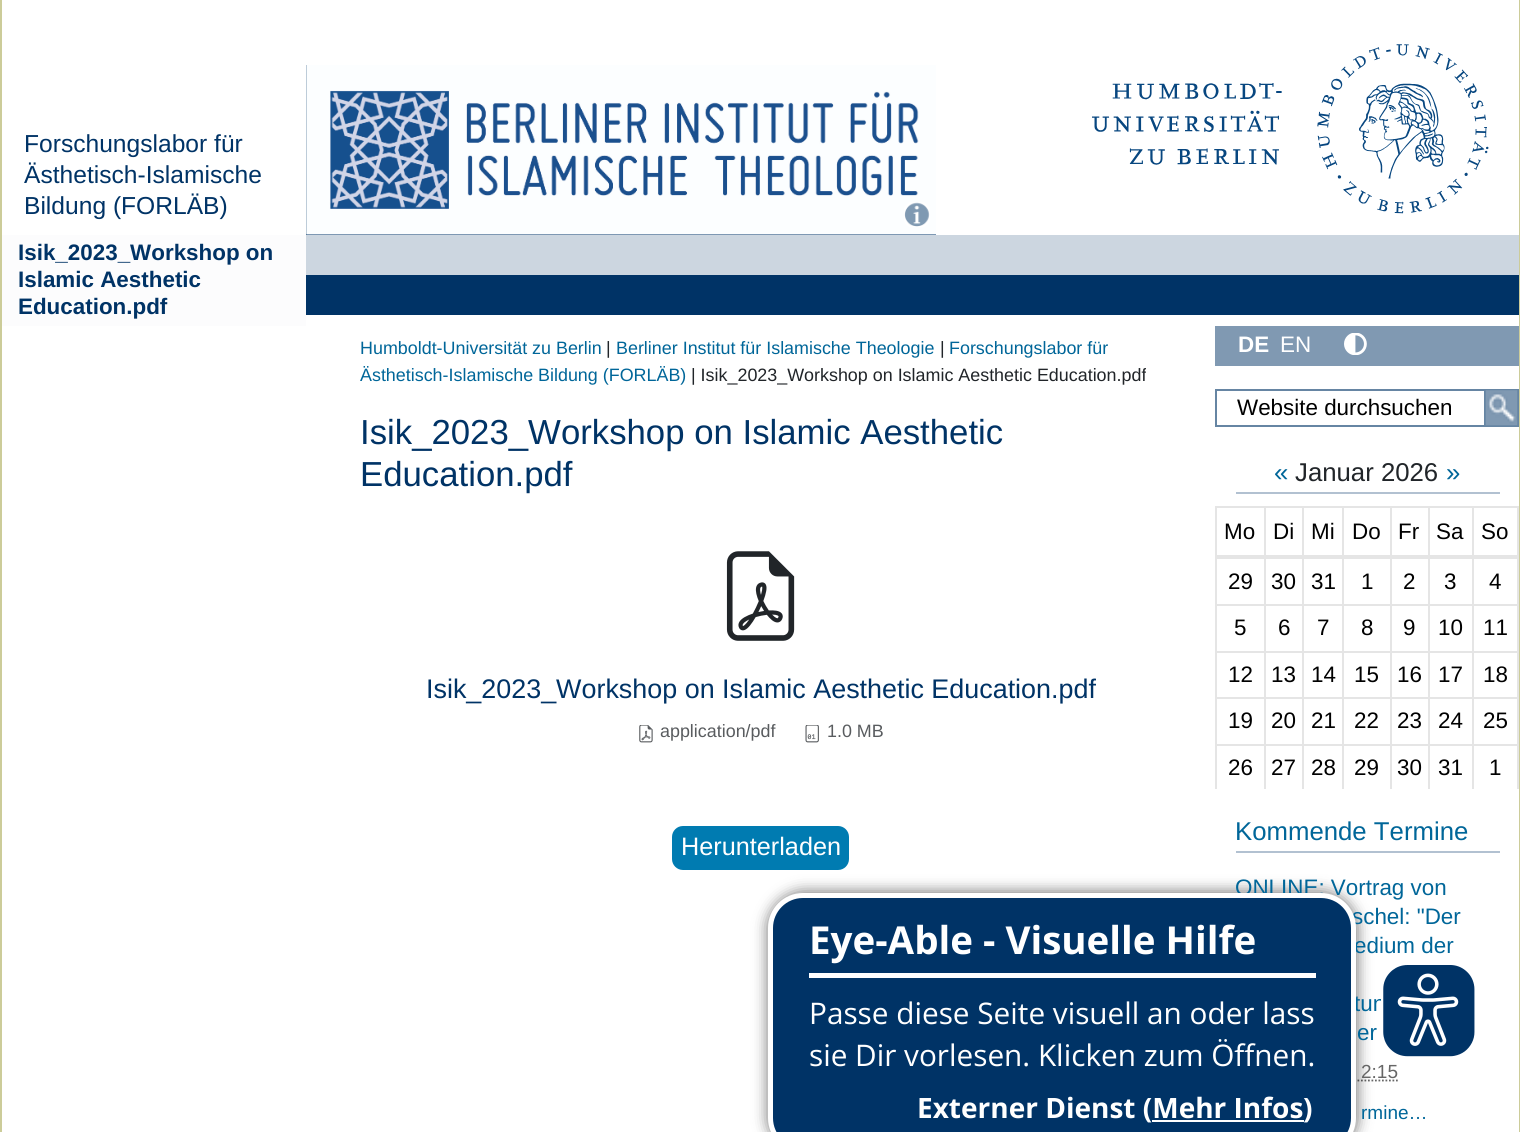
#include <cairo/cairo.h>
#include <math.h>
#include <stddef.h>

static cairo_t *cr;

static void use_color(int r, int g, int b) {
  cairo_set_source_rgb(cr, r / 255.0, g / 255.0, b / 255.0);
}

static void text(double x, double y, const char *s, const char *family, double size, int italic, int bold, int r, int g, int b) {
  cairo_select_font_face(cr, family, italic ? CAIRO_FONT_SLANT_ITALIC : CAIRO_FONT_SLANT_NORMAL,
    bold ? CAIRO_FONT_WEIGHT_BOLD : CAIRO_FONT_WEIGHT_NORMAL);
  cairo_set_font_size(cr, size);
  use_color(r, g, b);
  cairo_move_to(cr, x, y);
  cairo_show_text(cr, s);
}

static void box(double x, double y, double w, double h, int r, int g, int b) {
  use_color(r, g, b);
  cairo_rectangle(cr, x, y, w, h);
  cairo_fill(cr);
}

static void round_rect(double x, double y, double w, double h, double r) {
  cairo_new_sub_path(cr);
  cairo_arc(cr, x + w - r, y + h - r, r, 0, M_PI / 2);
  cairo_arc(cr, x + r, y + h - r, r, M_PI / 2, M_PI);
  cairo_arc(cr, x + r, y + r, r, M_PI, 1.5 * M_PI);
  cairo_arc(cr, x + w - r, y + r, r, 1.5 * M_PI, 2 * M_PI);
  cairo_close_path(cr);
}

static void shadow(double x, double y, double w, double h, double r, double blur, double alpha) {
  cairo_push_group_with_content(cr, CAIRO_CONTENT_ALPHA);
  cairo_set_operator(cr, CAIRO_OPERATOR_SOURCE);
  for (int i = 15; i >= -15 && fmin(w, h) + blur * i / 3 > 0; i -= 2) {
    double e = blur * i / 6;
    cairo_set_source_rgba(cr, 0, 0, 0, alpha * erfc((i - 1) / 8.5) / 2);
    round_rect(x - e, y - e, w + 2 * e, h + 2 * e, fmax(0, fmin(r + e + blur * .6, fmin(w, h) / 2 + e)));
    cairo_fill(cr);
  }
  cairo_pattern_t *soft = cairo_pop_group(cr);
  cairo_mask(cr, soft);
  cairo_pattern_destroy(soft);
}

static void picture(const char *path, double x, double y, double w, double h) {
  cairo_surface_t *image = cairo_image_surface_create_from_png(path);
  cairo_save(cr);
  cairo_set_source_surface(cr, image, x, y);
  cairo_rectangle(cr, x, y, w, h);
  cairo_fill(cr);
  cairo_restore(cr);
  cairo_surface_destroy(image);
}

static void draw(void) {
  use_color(255, 255, 255);
  cairo_paint(cr);
  box(306, 65, 630, 170, 0, 51, 102);
  picture("img_01.png", 306, 65, 630, 170);
  picture("img_02.png", 904, 202, 26, 25);
  picture("img_03.png", 1092, 44, 397, 170);
  box(1519, 0, 1, 1132, 204, 204, 153);
  box(0, 0, 2, 1132, 204, 204, 153);
  box(2, 235, 304, 91, 252, 252, 253);
  box(306, 235, 1213, 40, 204, 214, 224);
  box(306, 275, 1213, 40, 0, 51, 102);
  picture("img_04.png", 726, 551, 69, 90);
  picture("img_05.png", 639, 725, 14, 18);
  picture("img_06.png", 805, 725, 14, 18);
  use_color(0, 123, 177);
  round_rect(672, 826, 177, 44, 11);
  cairo_fill(cr);
  box(1215, 326, 304, 40, 128, 153, 178);
  picture("img_07.png", 1344, 333, 23, 22);
  cairo_rectangle(cr, 1216, 390, 302, 36);
  use_color(102, 133, 163);
  cairo_stroke(cr);
  cairo_rectangle(cr, 1485, 390, 33, 36);
  cairo_stroke(cr);
  picture("img_08.png", 1485, 390, 33, 36);
  box(1236, 492, 264, 2, 178, 193, 209);
  box(1472, 506, 47, 2, 229, 229, 229);
  box(1517, 506, 2, 51, 229, 229, 229);
  box(1472, 555, 47, 2, 229, 229, 229);
  box(1472, 506, 2, 51, 229, 229, 229);
  box(1428, 506, 46, 2, 229, 229, 229);
  box(1428, 555, 46, 2, 229, 229, 229);
  box(1428, 506, 2, 51, 229, 229, 229);
  box(1390, 506, 40, 2, 229, 229, 229);
  box(1390, 555, 40, 2, 229, 229, 229);
  box(1390, 506, 2, 51, 229, 229, 229);
  box(1342, 506, 49, 2, 229, 229, 229);
  box(1342, 555, 49, 2, 229, 229, 229);
  box(1342, 506, 2, 51, 229, 229, 229);
  box(1302, 506, 42, 2, 229, 229, 229);
  box(1302, 555, 42, 2, 229, 229, 229);
  box(1302, 506, 2, 51, 229, 229, 229);
  box(1264, 506, 40, 2, 229, 229, 229);
  box(1264, 555, 40, 2, 229, 229, 229);
  box(1264, 506, 2, 51, 229, 229, 229);
  box(1215, 506, 50, 2, 229, 229, 229);
  box(1215, 555, 50, 2, 229, 229, 229);
  box(1215, 506, 2, 51, 229, 229, 229);
  box(1472, 557, 47, 2, 229, 229, 229);
  box(1472, 604, 47, 2, 229, 229, 229);
  box(1472, 651, 47, 2, 229, 229, 229);
  box(1472, 697, 47, 2, 229, 229, 229);
  box(1472, 744, 47, 2, 229, 229, 229);
  box(1472, 744, 2, 45, 229, 229, 229);
  box(1428, 744, 46, 2, 229, 229, 229);
  box(1472, 697, 2, 49, 229, 229, 229);
  box(1428, 697, 46, 2, 229, 229, 229);
  box(1472, 651, 2, 47, 229, 229, 229);
  box(1428, 651, 46, 2, 229, 229, 229);
  box(1472, 604, 2, 49, 229, 229, 229);
  box(1428, 604, 46, 2, 229, 229, 229);
  box(1472, 557, 2, 49, 229, 229, 229);
  box(1428, 557, 46, 2, 229, 229, 229);
  box(1428, 744, 2, 45, 229, 229, 229);
  box(1390, 744, 40, 2, 229, 229, 229);
  box(1428, 697, 2, 49, 229, 229, 229);
  box(1390, 697, 40, 2, 229, 229, 229);
  box(1428, 651, 2, 47, 229, 229, 229);
  box(1390, 651, 40, 2, 229, 229, 229);
  box(1428, 604, 2, 49, 229, 229, 229);
  box(1390, 604, 40, 2, 229, 229, 229);
  box(1428, 557, 2, 49, 229, 229, 229);
  box(1390, 557, 40, 2, 229, 229, 229);
  box(1390, 744, 2, 45, 229, 229, 229);
  box(1342, 744, 49, 2, 229, 229, 229);
  box(1390, 697, 2, 49, 229, 229, 229);
  box(1342, 697, 49, 2, 229, 229, 229);
  box(1390, 651, 2, 47, 229, 229, 229);
  box(1342, 651, 49, 2, 229, 229, 229);
  box(1390, 604, 2, 49, 229, 229, 229);
  box(1342, 604, 49, 2, 229, 229, 229);
  box(1390, 557, 2, 49, 229, 229, 229);
  box(1342, 557, 49, 2, 229, 229, 229);
  box(1342, 744, 2, 45, 229, 229, 229);
  box(1302, 744, 42, 2, 229, 229, 229);
  box(1342, 697, 2, 49, 229, 229, 229);
  box(1302, 697, 42, 2, 229, 229, 229);
  box(1342, 651, 2, 47, 229, 229, 229);
  box(1302, 651, 42, 2, 229, 229, 229);
  box(1342, 604, 2, 49, 229, 229, 229);
  box(1302, 604, 42, 2, 229, 229, 229);
  box(1342, 557, 2, 49, 229, 229, 229);
  box(1302, 557, 42, 2, 229, 229, 229);
  box(1302, 744, 2, 45, 229, 229, 229);
  box(1264, 744, 40, 2, 229, 229, 229);
  box(1302, 697, 2, 49, 229, 229, 229);
  box(1264, 697, 40, 2, 229, 229, 229);
  box(1302, 651, 2, 47, 229, 229, 229);
  box(1264, 651, 40, 2, 229, 229, 229);
  box(1302, 604, 2, 49, 229, 229, 229);
  box(1264, 604, 40, 2, 229, 229, 229);
  box(1302, 557, 2, 49, 229, 229, 229);
  box(1264, 557, 40, 2, 229, 229, 229);
  box(1264, 744, 2, 45, 229, 229, 229);
  box(1215, 744, 50, 2, 229, 229, 229);
  box(1264, 697, 2, 49, 229, 229, 229);
  box(1215, 697, 50, 2, 229, 229, 229);
  box(1264, 651, 2, 47, 229, 229, 229);
  box(1215, 651, 50, 2, 229, 229, 229);
  box(1264, 604, 2, 49, 229, 229, 229);
  box(1215, 604, 50, 2, 229, 229, 229);
  box(1264, 557, 2, 49, 229, 229, 229);
  box(1215, 557, 50, 2, 229, 229, 229);
  box(1215, 744, 2, 45, 229, 229, 229);
  box(1215, 697, 2, 49, 229, 229, 229);
  box(1215, 651, 2, 47, 229, 229, 229);
  box(1215, 604, 2, 49, 229, 229, 229);
  box(1215, 557, 2, 49, 229, 229, 229);
  box(1517, 744, 2, 45, 229, 229, 229);
  box(1517, 697, 2, 49, 229, 229, 229);
  box(1517, 651, 2, 47, 229, 229, 229);
  box(1517, 604, 2, 49, 229, 229, 229);
  box(1517, 557, 2, 49, 229, 229, 229);
  box(1236, 851, 264, 2, 178, 193, 209);
  cairo_new_path(cr);
  cairo_move_to(cr, 1350.5, 1080.5);
  cairo_line_to(cr, 1398, 1080.5);
  use_color(102, 102, 102);
  cairo_set_line_width(cr, 1.8);
  cairo_set_dash(cr, (double[]){1.75, 1.75}, 2, 0);
  cairo_stroke(cr);
  use_color(0, 0, 0);
  shadow(767, 891, 591, 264, 37, 7, 0.5);
  text(24, 152, "Forschungslabor für", "Liberation Sans", 24.6, 0, 0, 0, 51, 102);
  text(24, 183, "Ästhetisch-Islamische", "Liberation Sans", 24.6, 0, 0, 0, 51, 102);
  text(24, 214, "Bildung (FORLÄB)", "Liberation Sans", 24.6, 0, 0, 0, 51, 102);
  text(18, 260, "Isik_2023_Workshop on", "Liberation Sans", 22.4, 0, 1, 0, 51, 102);
  text(18, 287, "Islamic Aesthetic", "Liberation Sans", 22.4, 0, 1, 0, 51, 102);
  text(18, 314, "Education.pdf", "Liberation Sans", 22.4, 0, 1, 0, 51, 102);
  text(360, 354, "Humboldt-Universität zu Berlin", "Liberation Sans", 17.9, 0, 0, 0, 102, 153);
  text(606, 354, "|", "Liberation Sans", 17.9, 0, 0, 33, 37, 41);
  text(616, 354, "Berliner Institut für Islamische Theologie", "Liberation Sans", 17.9, 0, 0, 0, 102, 153);
  text(940, 354, "|", "Liberation Sans", 17.9, 0, 0, 33, 37, 41);
  text(949, 354, "Forschungslabor für", "Liberation Sans", 17.9, 0, 0, 0, 102, 153);
  text(360, 381, "Ästhetisch-Islamische Bildung (FORLÄB)", "Liberation Sans", 17.9, 0, 0, 0, 102, 153);
  text(691, 381, "| Isik_2023_Workshop on Islamic Aesthetic Education.pdf", "Liberation Sans", 17.9, 0, 0, 33, 37, 41);
  text(360, 444, "Isik_2023_Workshop on Islamic Aesthetic", "Liberation Sans", 34.75, 0, 0, 0, 51, 102);
  text(360, 486, "Education.pdf", "Liberation Sans", 34.75, 0, 0, 0, 51, 102);
  text(426, 698, "Isik_2023_Workshop on Islamic Aesthetic Education.pdf", "Liberation Sans", 26.9, 0, 0, 0, 51, 102);
  text(660, 737, "application/pdf", "Liberation Sans", 17.9, 0, 0, 89, 92, 95);
  text(827, 737, "1.0 MB", "Liberation Sans", 17.9, 0, 0, 89, 92, 95);
  text(681, 855, "Herunterladen", "Liberation Sans", 25.25, 0, 0, 255, 255, 255);
  text(1238, 352, "DE", "Liberation Sans", 22.4, 0, 1, 255, 255, 255);
  text(1280, 352, "EN", "Liberation Sans", 22.4, 0, 0, 255, 255, 255);
  text(1237, 415, "Website durchsuchen", "Liberation Sans", 22.4, 0, 0, 0, 0, 0);
  text(1274, 481, "«", "Liberation Sans", 25.75, 0, 0, 0, 102, 153);
  text(1295, 481, "Januar 2026", "Liberation Sans", 25.75, 0, 0, 33, 37, 41);
  text(1446, 481, "»", "Liberation Sans", 25.75, 0, 0, 0, 102, 153);
  text(1224, 539, "Mo", "Liberation Sans", 22.4, 0, 0, 0, 0, 0);
  text(1273, 539, "Di", "Liberation Sans", 22.4, 0, 0, 0, 0, 0);
  text(1311, 539, "Mi", "Liberation Sans", 22.4, 0, 0, 0, 0, 0);
  text(1352, 539, "Do", "Liberation Sans", 22.4, 0, 0, 0, 0, 0);
  text(1398, 539, "Fr", "Liberation Sans", 22.4, 0, 0, 0, 0, 0);
  text(1436, 539, "Sa", "Liberation Sans", 22.4, 0, 0, 0, 0, 0);
  text(1481, 539, "So", "Liberation Sans", 22.4, 0, 0, 0, 0, 0);
  text(1228, 589, "29", "Liberation Sans", 22.4, 0, 0, 0, 0, 0);
  text(1271, 589, "30", "Liberation Sans", 22.4, 0, 0, 0, 0, 0);
  text(1311, 589, "31", "Liberation Sans", 22.4, 0, 0, 0, 0, 0);
  text(1361, 589, "1", "Liberation Sans", 22.4, 0, 0, 0, 0, 0);
  text(1403, 589, "2", "Liberation Sans", 22.4, 0, 0, 0, 0, 0);
  text(1444, 589, "3", "Liberation Sans", 22.4, 0, 0, 0, 0, 0);
  text(1489, 589, "4", "Liberation Sans", 22.4, 0, 0, 0, 0, 0);
  text(1234, 635, "5", "Liberation Sans", 22.4, 0, 0, 0, 0, 0);
  text(1278, 635, "6", "Liberation Sans", 22.4, 0, 0, 0, 0, 0);
  text(1317, 635, "7", "Liberation Sans", 22.4, 0, 0, 0, 0, 0);
  text(1361, 635, "8", "Liberation Sans", 22.4, 0, 0, 0, 0, 0);
  text(1403, 635, "9", "Liberation Sans", 22.4, 0, 0, 0, 0, 0);
  text(1438, 635, "10", "Liberation Sans", 22.4, 0, 0, 0, 0, 0);
  text(1483, 635, "11", "Liberation Sans", 22.4, 0, 0, 0, 0, 0);
  text(1228, 682, "12", "Liberation Sans", 22.4, 0, 0, 0, 0, 0);
  text(1271, 682, "13", "Liberation Sans", 22.4, 0, 0, 0, 0, 0);
  text(1311, 682, "14", "Liberation Sans", 22.4, 0, 0, 0, 0, 0);
  text(1354, 682, "15", "Liberation Sans", 22.4, 0, 0, 0, 0, 0);
  text(1397, 682, "16", "Liberation Sans", 22.4, 0, 0, 0, 0, 0);
  text(1438, 682, "17", "Liberation Sans", 22.4, 0, 0, 0, 0, 0);
  text(1483, 682, "18", "Liberation Sans", 22.4, 0, 0, 0, 0, 0);
  text(1228, 728, "19", "Liberation Sans", 22.4, 0, 0, 0, 0, 0);
  text(1271, 728, "20", "Liberation Sans", 22.4, 0, 0, 0, 0, 0);
  text(1311, 728, "21", "Liberation Sans", 22.4, 0, 0, 0, 0, 0);
  text(1354, 728, "22", "Liberation Sans", 22.4, 0, 0, 0, 0, 0);
  text(1397, 728, "23", "Liberation Sans", 22.4, 0, 0, 0, 0, 0);
  text(1438, 728, "24", "Liberation Sans", 22.4, 0, 0, 0, 0, 0);
  text(1483, 728, "25", "Liberation Sans", 22.4, 0, 0, 0, 0, 0);
  text(1228, 775, "26", "Liberation Sans", 22.4, 0, 0, 0, 0, 0);
  text(1271, 775, "27", "Liberation Sans", 22.4, 0, 0, 0, 0, 0);
  text(1311, 775, "28", "Liberation Sans", 22.4, 0, 0, 0, 0, 0);
  text(1354, 775, "29", "Liberation Sans", 22.4, 0, 0, 0, 0, 0);
  text(1397, 775, "30", "Liberation Sans", 22.4, 0, 0, 0, 0, 0);
  text(1438, 775, "31", "Liberation Sans", 22.4, 0, 0, 0, 0, 0);
  text(1489, 775, "1", "Liberation Sans", 22.4, 0, 0, 0, 0, 0);
  text(1235, 840, "Kommende Termine", "Liberation Sans", 25.75, 0, 0, 0, 102, 153);
  text(1235, 895, "ONLINE: Vortrag von", "Liberation Sans", 22.4, 0, 0, 0, 102, 153);
  text(1352, 924, "schel: \"Der", "Liberation Sans", 22.4, 0, 0, 0, 102, 153);
  text(1354, 953, "edium der", "Liberation Sans", 22.4, 0, 0, 0, 102, 153);
  text(1354, 1011, "tun", "Liberation Sans", 22.4, 0, 0, 0, 102, 153);
  text(1357, 1040, "er", "Liberation Sans", 22.4, 0, 0, 0, 102, 153);
  text(1361, 1078, "2:15", "Liberation Sans", 19, 0, 0, 102, 102, 102);
  text(1361, 1119, "rmine…", "Liberation Sans", 19, 0, 0, 0, 102, 153);
  use_color(0, 51, 102);
  round_rect(770.5, 895.5, 583, 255, 32.5);
  cairo_fill_preserve(cr);
  use_color(255, 255, 255);
  cairo_set_line_width(cr, 5);
  cairo_set_dash(cr, NULL, 0, 0);
  cairo_stroke(cr);
  box(809, 973, 507, 5, 255, 255, 255);
  text(809, 954, "Eye-Able - Visuelle Hilfe", "Open Sans", 38.5, 0, 1, 255, 255, 255);
  text(809, 1024, "Passe diese Seite visuell an oder lass", "Open Sans", 29.75, 0, 0, 255, 255, 255);
  text(809, 1066, "sie Dir vorlesen. Klicken zum Öffnen.", "Open Sans", 29.75, 0, 0, 255, 255, 255);
  text(917, 1118, "Externer Dienst (Mehr Infos", "Open Sans", 28, 0, 1, 255, 255, 255);
  box(1152, 1120, 152, 2, 255, 255, 255);
  text(1303, 1118, ")", "Open Sans", 28, 0, 1, 255, 255, 255);
  picture("img_09.png", 1381, 965, 94, 92);
}

int main(void) {
  cairo_surface_t *surface = cairo_image_surface_create(CAIRO_FORMAT_RGB24, 1520, 1132);
  cr = cairo_create(surface);
  cairo_font_options_t *options = cairo_font_options_create();
  cairo_font_options_set_hint_metrics(options, CAIRO_HINT_METRICS_OFF);
  cairo_font_options_set_hint_style(options, CAIRO_HINT_STYLE_NONE);
  cairo_set_font_options(cr, options);
  cairo_set_miter_limit(cr, 4);
  draw();
  cairo_surface_write_to_png(surface, "out.png");
  cairo_font_options_destroy(options);
  cairo_destroy(cr);
  cairo_surface_destroy(surface);
  return 0;
}
